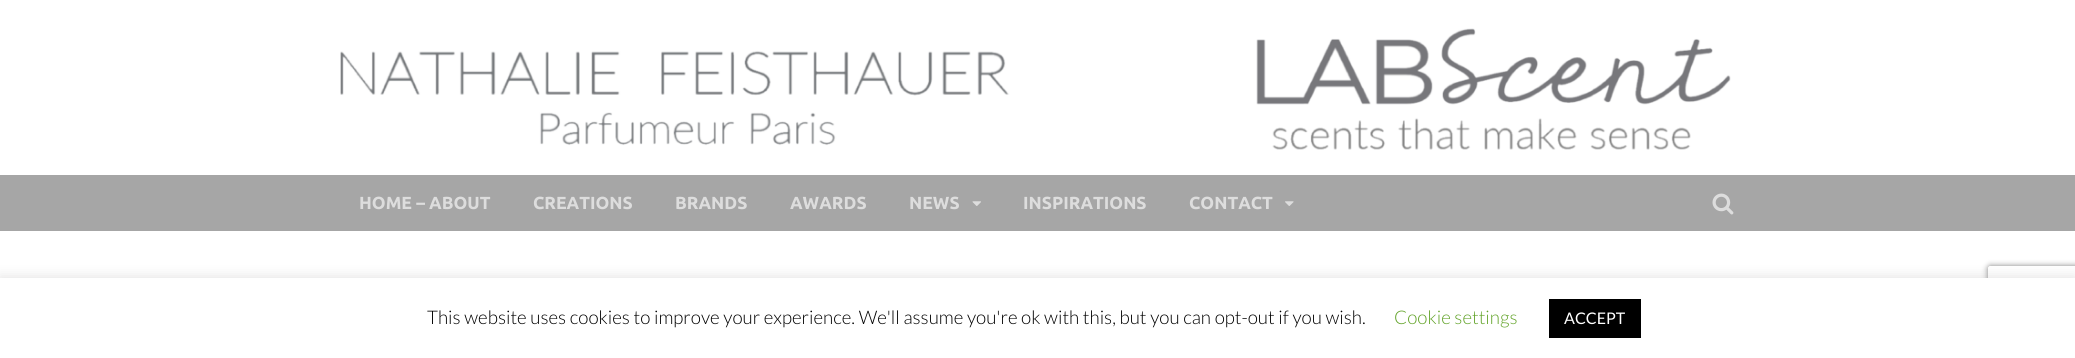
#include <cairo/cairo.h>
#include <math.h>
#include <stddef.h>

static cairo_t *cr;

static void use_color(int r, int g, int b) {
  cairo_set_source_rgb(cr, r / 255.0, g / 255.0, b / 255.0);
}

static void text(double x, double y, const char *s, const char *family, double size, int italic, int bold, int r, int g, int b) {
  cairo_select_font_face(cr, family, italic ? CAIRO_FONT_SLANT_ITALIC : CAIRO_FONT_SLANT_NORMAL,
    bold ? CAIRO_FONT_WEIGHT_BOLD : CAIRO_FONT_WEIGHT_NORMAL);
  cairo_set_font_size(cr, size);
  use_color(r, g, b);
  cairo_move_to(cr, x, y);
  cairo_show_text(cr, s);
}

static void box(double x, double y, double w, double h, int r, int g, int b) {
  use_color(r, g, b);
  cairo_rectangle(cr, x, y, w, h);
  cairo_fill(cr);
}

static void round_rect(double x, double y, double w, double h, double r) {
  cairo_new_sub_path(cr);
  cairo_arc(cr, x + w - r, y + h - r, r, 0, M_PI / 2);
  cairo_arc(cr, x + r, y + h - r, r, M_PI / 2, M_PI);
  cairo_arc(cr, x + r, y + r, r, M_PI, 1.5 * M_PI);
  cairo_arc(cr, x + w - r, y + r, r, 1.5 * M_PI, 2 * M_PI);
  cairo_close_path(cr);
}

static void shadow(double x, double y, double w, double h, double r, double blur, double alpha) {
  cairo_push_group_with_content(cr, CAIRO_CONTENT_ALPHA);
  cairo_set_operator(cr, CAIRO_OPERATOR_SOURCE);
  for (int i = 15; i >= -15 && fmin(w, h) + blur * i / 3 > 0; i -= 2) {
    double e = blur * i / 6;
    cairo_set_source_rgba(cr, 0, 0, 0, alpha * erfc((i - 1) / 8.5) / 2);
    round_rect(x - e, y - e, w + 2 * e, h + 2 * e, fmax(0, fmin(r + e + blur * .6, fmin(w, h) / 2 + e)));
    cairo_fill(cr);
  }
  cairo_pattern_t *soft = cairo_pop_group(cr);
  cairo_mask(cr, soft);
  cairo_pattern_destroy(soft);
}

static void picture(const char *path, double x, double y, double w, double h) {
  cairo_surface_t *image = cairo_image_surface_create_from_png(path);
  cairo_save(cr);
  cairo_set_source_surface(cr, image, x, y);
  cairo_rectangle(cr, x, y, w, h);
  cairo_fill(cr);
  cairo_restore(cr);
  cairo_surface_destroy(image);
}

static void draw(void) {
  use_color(255, 255, 255);
  cairo_paint(cr);
  picture("img_01.png", 340, 28, 1391, 122);
  box(0, 175, 2075, 56, 166, 166, 166);
  picture("img_02.png", 972, 201, 9, 5);
  picture("img_03.png", 1285, 201, 9, 5);
  picture("img_04.png", 1712, 193, 22, 22);
  use_color(172, 171, 171);
  shadow(0, 276, 2075, 82, 0, 6, 0.3);
  cairo_save(cr);
  cairo_set_fill_rule(cr, CAIRO_FILL_RULE_EVEN_ODD);
  cairo_new_path(cr);
  cairo_move_to(cr, 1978, 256);
  cairo_line_to(cr, 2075, 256);
  cairo_line_to(cr, 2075, 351);
  cairo_line_to(cr, 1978, 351);
  cairo_close_path(cr);
  cairo_move_to(cr, 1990.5, 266);
  cairo_line_to(cr, 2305.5, 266);
  cairo_curve_to(cr, 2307, 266, 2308, 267, 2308, 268.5);
  cairo_line_to(cr, 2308, 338.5);
  cairo_curve_to(cr, 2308, 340, 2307, 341, 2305.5, 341);
  cairo_line_to(cr, 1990.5, 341);
  cairo_curve_to(cr, 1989, 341, 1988, 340, 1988, 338.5);
  cairo_line_to(cr, 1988, 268.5);
  cairo_curve_to(cr, 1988, 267, 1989, 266, 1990.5, 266);
  cairo_close_path(cr);
  cairo_clip(cr);
  use_color(128, 128, 128);
  shadow(1988, 266, 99, 75, 2.5, 3, 1);
  cairo_restore(cr);
  box(0, 278, 2075, 80, 255, 255, 255);
  box(1549, 299, 92, 39, 0, 0, 0);
  text(359, 209, "HOME – ABOUT", "Ubuntu", 17.5, 0, 1, 221, 221, 221);
  text(533, 209, "CREATIONS", "Ubuntu", 17.5, 0, 1, 221, 221, 221);
  text(675, 209, "BRANDS", "Ubuntu", 17.5, 0, 1, 221, 221, 221);
  text(790, 209, "AWARDS", "Ubuntu", 17.5, 0, 1, 221, 221, 221);
  text(909, 209, "NEWS", "Ubuntu", 17.5, 0, 1, 221, 221, 221);
  text(1023, 209, "INSPIRATIONS", "Ubuntu", 17.5, 0, 1, 221, 221, 221);
  text(1189, 209, "CONTACT", "Ubuntu", 17.5, 0, 1, 221, 221, 221);
  text(427, 324, "This website uses cookies to improve your experience. We'll assume you're ok with this, but you can opt-out if you wish.", "Lato Light", 18.75, 0, 0, 0, 0, 0);
  text(1394, 324, "Cookie settings", "Lato Light", 18.75, 0, 0, 98, 163, 41);
  text(1564, 324, "ACCEPT", "Lato", 16, 0, 0, 255, 255, 255);
}

int main(void) {
  cairo_surface_t *surface = cairo_image_surface_create(CAIRO_FORMAT_RGB24, 2075, 358);
  cr = cairo_create(surface);
  cairo_font_options_t *options = cairo_font_options_create();
  cairo_font_options_set_hint_metrics(options, CAIRO_HINT_METRICS_OFF);
  cairo_font_options_set_hint_style(options, CAIRO_HINT_STYLE_NONE);
  cairo_set_font_options(cr, options);
  cairo_set_miter_limit(cr, 4);
  draw();
  cairo_surface_write_to_png(surface, "out.png");
  cairo_font_options_destroy(options);
  cairo_destroy(cr);
  cairo_surface_destroy(surface);
  return 0;
}
